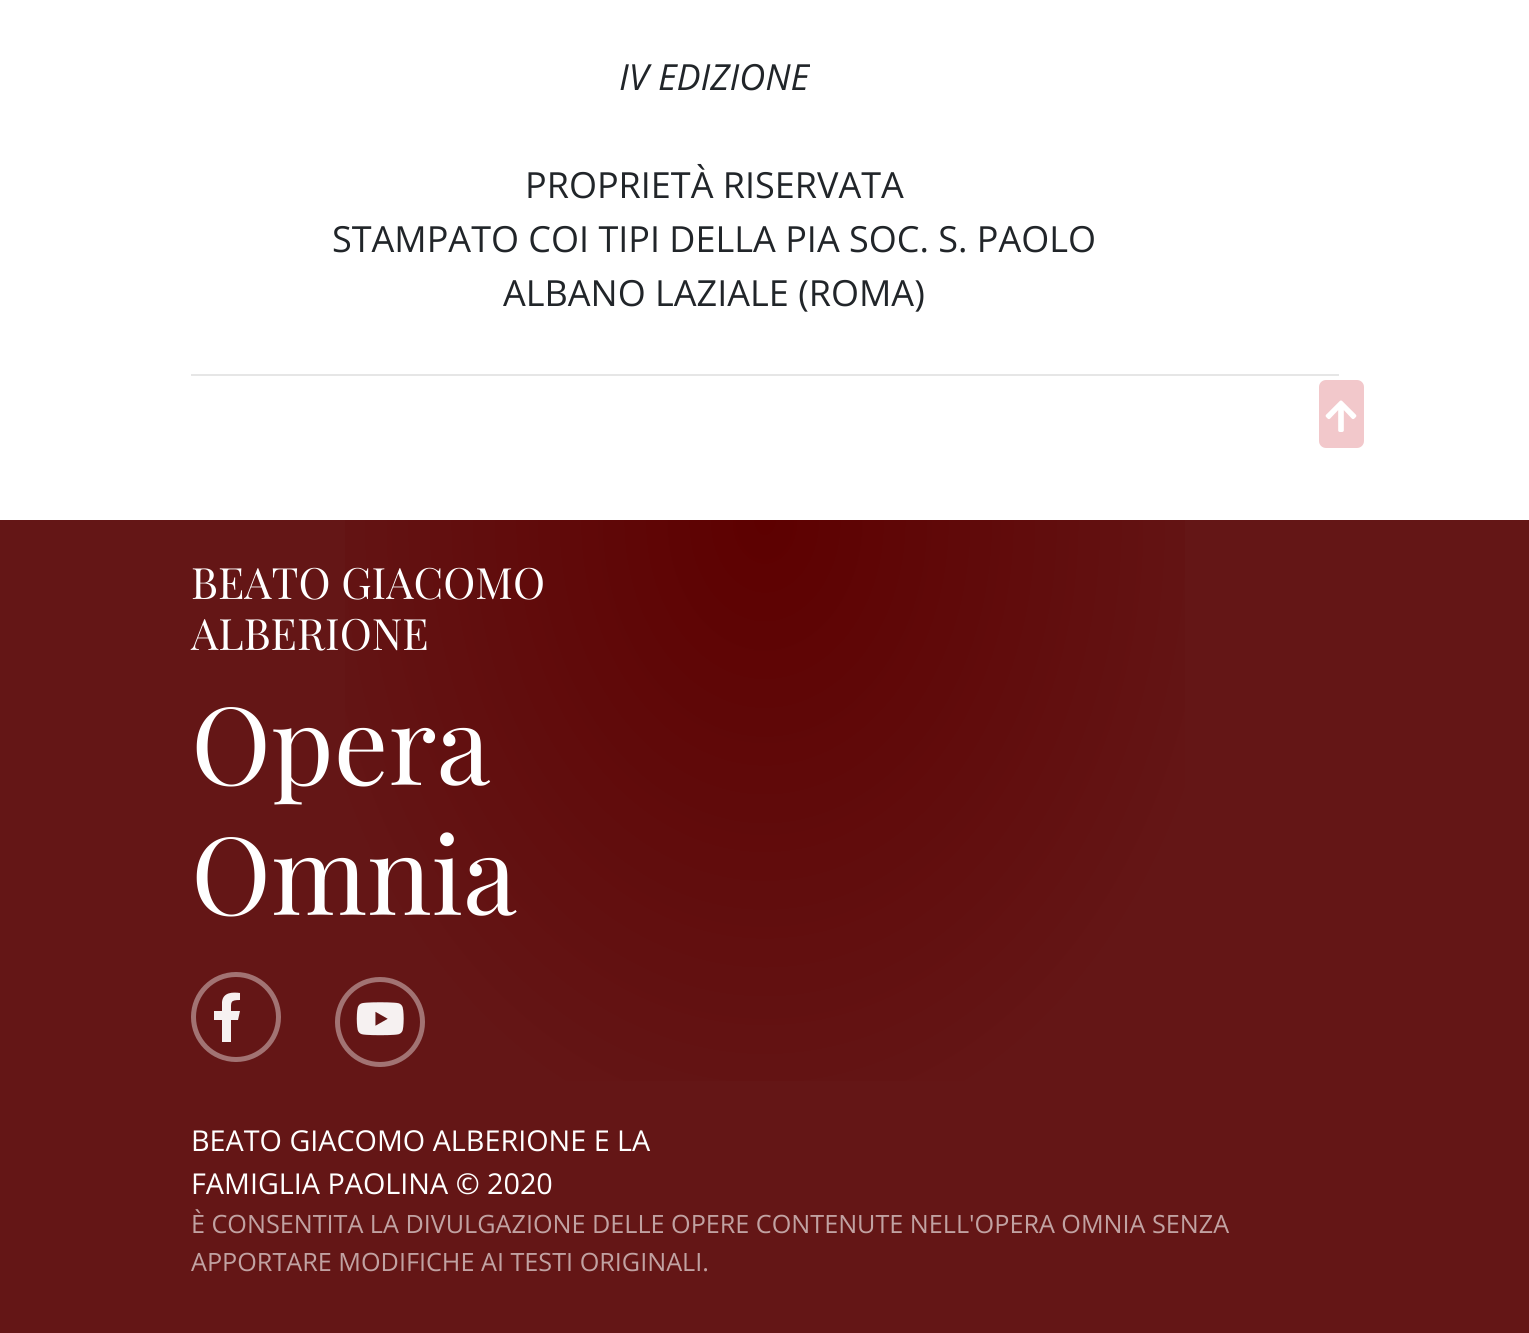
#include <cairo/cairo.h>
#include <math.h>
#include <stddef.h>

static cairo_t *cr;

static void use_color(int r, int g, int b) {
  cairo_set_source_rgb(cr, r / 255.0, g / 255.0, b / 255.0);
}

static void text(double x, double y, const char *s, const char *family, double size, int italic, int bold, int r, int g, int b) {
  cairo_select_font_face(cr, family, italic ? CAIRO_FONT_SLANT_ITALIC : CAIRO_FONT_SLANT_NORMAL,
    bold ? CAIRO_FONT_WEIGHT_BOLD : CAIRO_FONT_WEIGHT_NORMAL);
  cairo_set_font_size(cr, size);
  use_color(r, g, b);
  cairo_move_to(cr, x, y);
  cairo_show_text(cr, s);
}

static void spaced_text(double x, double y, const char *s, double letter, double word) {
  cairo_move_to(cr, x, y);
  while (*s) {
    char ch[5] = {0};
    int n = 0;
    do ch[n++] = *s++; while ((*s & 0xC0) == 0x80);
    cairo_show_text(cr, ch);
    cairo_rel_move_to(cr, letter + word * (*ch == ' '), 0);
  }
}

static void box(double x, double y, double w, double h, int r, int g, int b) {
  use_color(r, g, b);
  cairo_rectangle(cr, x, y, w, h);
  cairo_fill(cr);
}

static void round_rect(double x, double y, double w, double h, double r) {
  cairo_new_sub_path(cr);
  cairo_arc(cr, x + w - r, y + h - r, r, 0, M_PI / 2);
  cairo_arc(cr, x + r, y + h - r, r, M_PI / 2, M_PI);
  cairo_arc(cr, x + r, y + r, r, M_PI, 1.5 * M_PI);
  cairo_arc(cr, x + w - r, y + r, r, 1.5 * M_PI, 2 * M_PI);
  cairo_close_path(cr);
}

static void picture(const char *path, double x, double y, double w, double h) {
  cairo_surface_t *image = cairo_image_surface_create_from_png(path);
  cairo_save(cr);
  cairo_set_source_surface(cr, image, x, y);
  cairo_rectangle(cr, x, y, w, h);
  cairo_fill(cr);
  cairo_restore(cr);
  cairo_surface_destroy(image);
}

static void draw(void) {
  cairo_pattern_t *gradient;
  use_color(255, 255, 255);
  cairo_paint(cr);
  box(191, 374, 1148, 2, 230, 230, 230);
  use_color(242, 200, 203);
  round_rect(1319, 380, 45, 68, 7);
  cairo_fill(cr);
  picture("img_01.png", 1325, 400, 32, 32);
  box(0, 520, 1529, 813, 100, 22, 22);
  gradient = cairo_pattern_create_radial(0, 0, 0, 0, 0, 1);
  cairo_pattern_set_matrix(gradient, &(cairo_matrix_t){1.0 / 859, 0, 0, 1.0 / 1152, -1.0 * 765 / 859, -1.0 * 520 / 1152});
  cairo_pattern_add_color_stop_rgba(gradient, 0, 0.365, 0, 0, 1);
  cairo_pattern_add_color_stop_rgba(gradient, 0.55, 0.392, 0.086, 0.086, 1);
  cairo_set_source(cr, gradient);
  cairo_pattern_destroy(gradient);
  cairo_rectangle(cr, 345, 520, 840, 561);
  cairo_fill(cr);
  cairo_arc(cr, 236, 1017, 42.5, 0, 2 * M_PI);
  use_color(162, 115, 115);
  cairo_set_line_width(cr, 5);
  cairo_stroke(cr);
  use_color(246, 241, 241);
  cairo_new_path(cr);
  cairo_move_to(cr, 238, 1020);
  cairo_line_to(cr, 240, 1011);
  cairo_line_to(cr, 231, 1011);
  cairo_curve_to(cr, 231, 1002, 230, 1000, 240, 1000);
  cairo_line_to(cr, 240, 993);
  cairo_curve_to(cr, 233, 992, 223, 992, 222, 1002);
  cairo_line_to(cr, 222, 1011);
  cairo_line_to(cr, 214, 1011);
  cairo_line_to(cr, 214, 1020);
  cairo_line_to(cr, 222, 1020);
  cairo_line_to(cr, 222, 1042);
  cairo_line_to(cr, 231, 1042);
  cairo_line_to(cr, 231, 1020);
  cairo_close_path(cr);
  cairo_fill(cr);
  cairo_arc(cr, 380, 1022, 42.5, 0, 2 * M_PI);
  use_color(162, 115, 115);
  cairo_stroke(cr);
  picture("img_02.png", 356, 1002, 48, 34);
  text(619, 90, "IV EDIZIONE", "Open Sans", 36, 1, 0, 33, 37, 41);
  text(525, 198, "PROPRIETÀ RISERVATA", "Open Sans", 36, 0, 0, 33, 37, 41);
  text(332, 252, "STAMPATO COI TIPI DELLA PIA SOC. S. PAOLO", "Open Sans", 36, 0, 0, 33, 37, 41);
  text(503, 306, "ALBANO LAZIALE (ROMA)", "Open Sans", 36, 0, 0, 33, 37, 41);
  text(191, 599, "BEATO GIACOMO", "Playfair Display", 43.25, 0, 0, 255, 255, 255);
  text(191, 650, "ALBERIONE", "Playfair Display", 43.25, 0, 0, 255, 255, 255);
  text(191, 785, "Opera", "Playfair Display", 108, 0, 0, 255, 255, 255);
  text(191, 915, "Omnia", "Playfair Display", 108, 0, 0, 255, 255, 255);
  text(191, 1151, "BEATO GIACOMO ALBERIONE E LA", "Open Sans", 28.75, 0, 0, 255, 255, 255);
  text(191, 1194, "FAMIGLIA PAOLINA © 2020", "Open Sans", 28.75, 0, 0, 255, 255, 255);
  cairo_set_font_size(cr, 25.2);
  use_color(193, 162, 162);
  spaced_text(191, 1233, "È CONSENTITA LA DIVULGAZIONE DELLE OPERE CONTENUTE NELL'OPERA OMNIA SENZA", 0, -0.1);
  text(191, 1271, "APPORTARE MODIFICHE AI TESTI ORIGINALI.", "Open Sans", 25.2, 0, 0, 193, 162, 162);
}

int main(void) {
  cairo_surface_t *surface = cairo_image_surface_create(CAIRO_FORMAT_RGB24, 1529, 1333);
  cr = cairo_create(surface);
  cairo_font_options_t *options = cairo_font_options_create();
  cairo_font_options_set_hint_metrics(options, CAIRO_HINT_METRICS_OFF);
  cairo_font_options_set_hint_style(options, CAIRO_HINT_STYLE_NONE);
  cairo_set_font_options(cr, options);
  cairo_set_miter_limit(cr, 4);
  draw();
  cairo_surface_write_to_png(surface, "out.png");
  cairo_font_options_destroy(options);
  cairo_destroy(cr);
  cairo_surface_destroy(surface);
  return 0;
}
